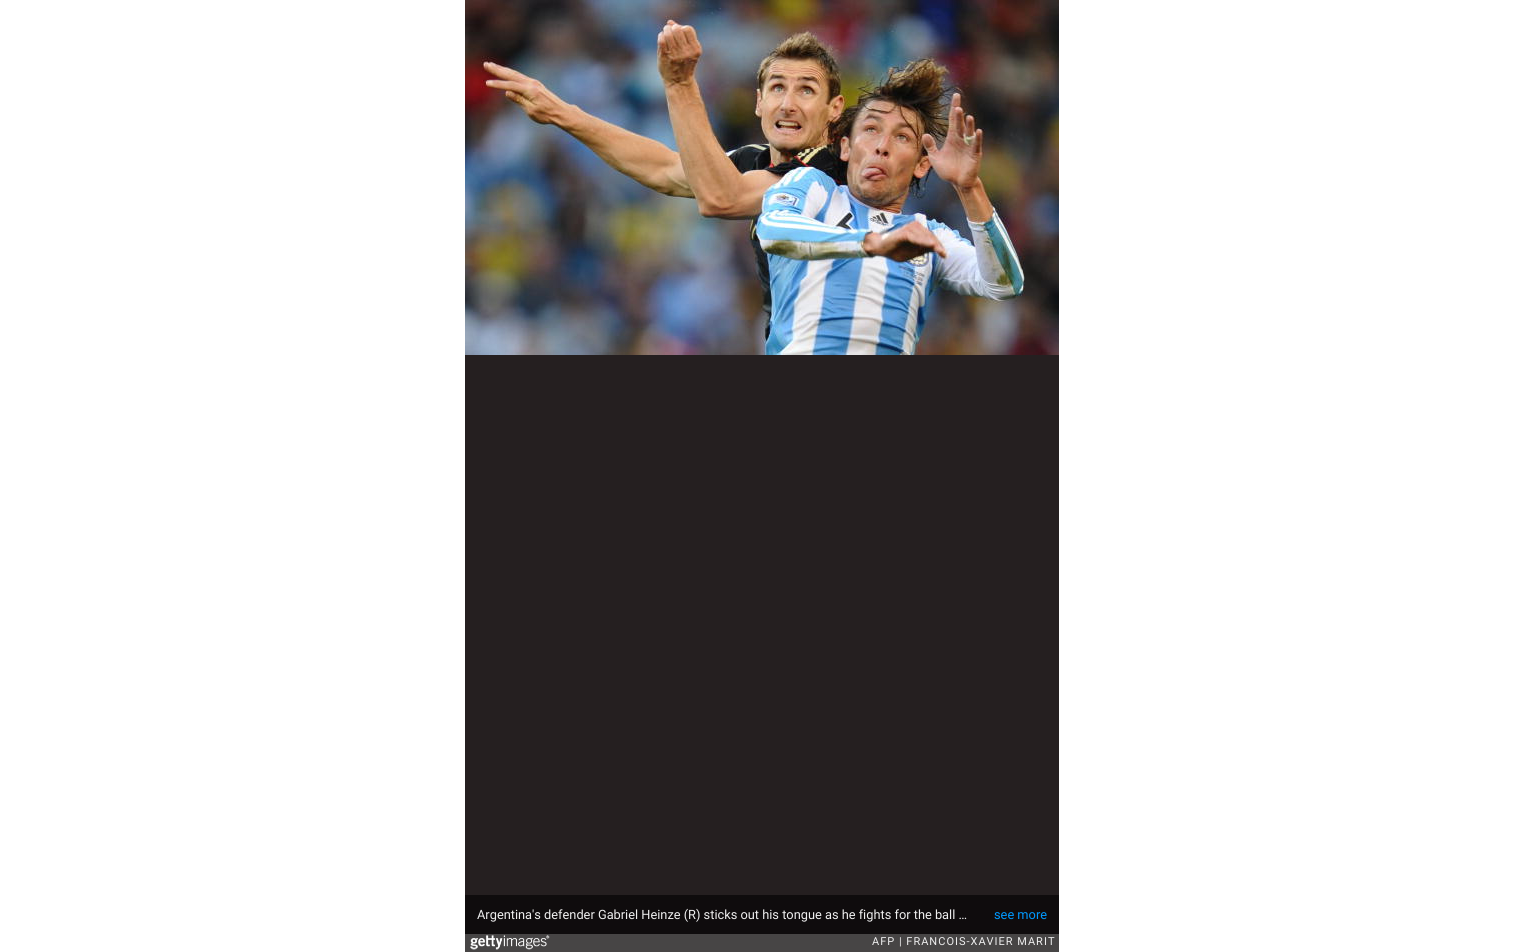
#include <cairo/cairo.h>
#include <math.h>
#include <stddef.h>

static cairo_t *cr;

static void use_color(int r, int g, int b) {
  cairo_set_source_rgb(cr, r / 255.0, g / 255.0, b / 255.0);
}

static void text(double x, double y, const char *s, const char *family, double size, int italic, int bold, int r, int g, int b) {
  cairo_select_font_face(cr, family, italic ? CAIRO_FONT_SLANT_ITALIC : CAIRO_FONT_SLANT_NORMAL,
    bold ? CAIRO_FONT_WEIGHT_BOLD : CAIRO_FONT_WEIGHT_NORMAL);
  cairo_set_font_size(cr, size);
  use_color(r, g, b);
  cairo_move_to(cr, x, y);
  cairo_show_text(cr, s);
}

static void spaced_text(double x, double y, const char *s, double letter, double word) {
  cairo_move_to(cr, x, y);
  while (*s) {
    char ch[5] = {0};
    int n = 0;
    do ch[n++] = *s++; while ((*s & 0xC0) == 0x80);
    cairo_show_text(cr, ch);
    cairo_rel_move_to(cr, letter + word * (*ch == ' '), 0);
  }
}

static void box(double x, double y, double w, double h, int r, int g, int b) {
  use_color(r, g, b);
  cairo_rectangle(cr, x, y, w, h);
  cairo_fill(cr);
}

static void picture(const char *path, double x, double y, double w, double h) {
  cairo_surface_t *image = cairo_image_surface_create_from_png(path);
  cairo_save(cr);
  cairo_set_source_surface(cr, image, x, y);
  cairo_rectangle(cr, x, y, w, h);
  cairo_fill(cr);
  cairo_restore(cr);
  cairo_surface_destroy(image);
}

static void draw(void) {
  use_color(255, 255, 255);
  cairo_paint(cr);
  box(465, 355, 594, 540, 37, 31, 32);
  picture("img_01.png", 465, 0, 594, 355);
  box(465, 895, 594, 39, 15, 12, 13);
  box(465, 934, 594, 18, 71, 69, 69);
  picture("img_02.png", 470, 935, 80, 15);
  text(477, 919, "Argentina's defender Gabriel Heinze (R) sticks out his tongue as he fights for the ball …", "Roboto", 12.8, 0, 0, 238, 238, 238);
  text(994, 919, "see more", "Roboto", 12.8, 0, 0, 0, 153, 255);
  cairo_set_font_size(cr, 11);
  use_color(238, 238, 238);
  spaced_text(872, 945, "AFP | FRANCOIS-XAVIER MARIT", 1, 0);
}

int main(void) {
  cairo_surface_t *surface = cairo_image_surface_create(CAIRO_FORMAT_RGB24, 1524, 952);
  cr = cairo_create(surface);
  cairo_font_options_t *options = cairo_font_options_create();
  cairo_font_options_set_hint_metrics(options, CAIRO_HINT_METRICS_OFF);
  cairo_font_options_set_hint_style(options, CAIRO_HINT_STYLE_NONE);
  cairo_set_font_options(cr, options);
  cairo_set_miter_limit(cr, 4);
  draw();
  cairo_surface_write_to_png(surface, "out.png");
  cairo_font_options_destroy(options);
  cairo_destroy(cr);
  cairo_surface_destroy(surface);
  return 0;
}
